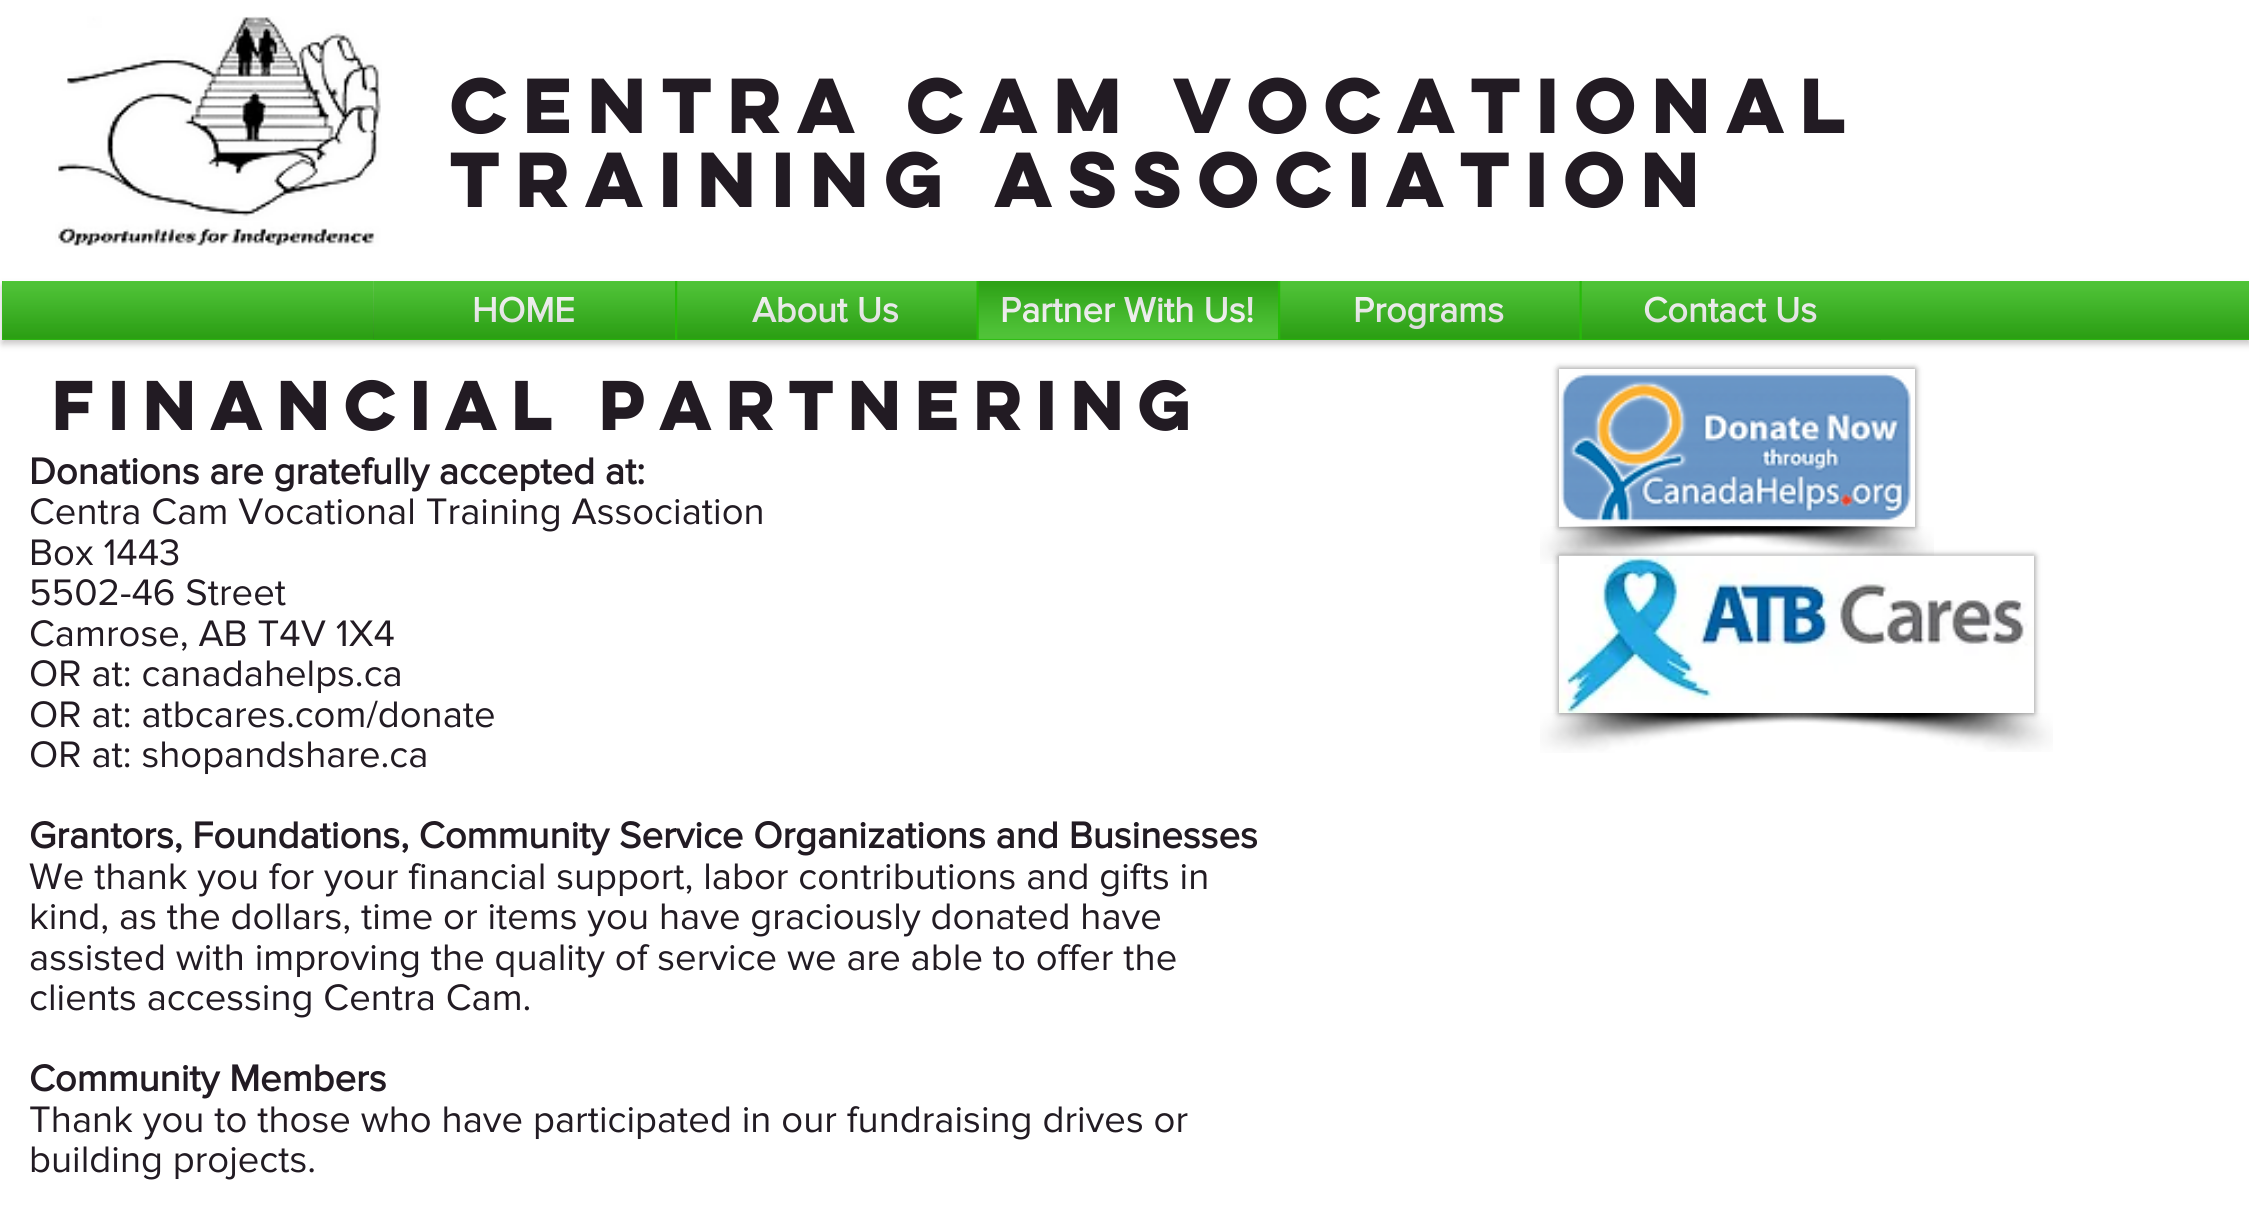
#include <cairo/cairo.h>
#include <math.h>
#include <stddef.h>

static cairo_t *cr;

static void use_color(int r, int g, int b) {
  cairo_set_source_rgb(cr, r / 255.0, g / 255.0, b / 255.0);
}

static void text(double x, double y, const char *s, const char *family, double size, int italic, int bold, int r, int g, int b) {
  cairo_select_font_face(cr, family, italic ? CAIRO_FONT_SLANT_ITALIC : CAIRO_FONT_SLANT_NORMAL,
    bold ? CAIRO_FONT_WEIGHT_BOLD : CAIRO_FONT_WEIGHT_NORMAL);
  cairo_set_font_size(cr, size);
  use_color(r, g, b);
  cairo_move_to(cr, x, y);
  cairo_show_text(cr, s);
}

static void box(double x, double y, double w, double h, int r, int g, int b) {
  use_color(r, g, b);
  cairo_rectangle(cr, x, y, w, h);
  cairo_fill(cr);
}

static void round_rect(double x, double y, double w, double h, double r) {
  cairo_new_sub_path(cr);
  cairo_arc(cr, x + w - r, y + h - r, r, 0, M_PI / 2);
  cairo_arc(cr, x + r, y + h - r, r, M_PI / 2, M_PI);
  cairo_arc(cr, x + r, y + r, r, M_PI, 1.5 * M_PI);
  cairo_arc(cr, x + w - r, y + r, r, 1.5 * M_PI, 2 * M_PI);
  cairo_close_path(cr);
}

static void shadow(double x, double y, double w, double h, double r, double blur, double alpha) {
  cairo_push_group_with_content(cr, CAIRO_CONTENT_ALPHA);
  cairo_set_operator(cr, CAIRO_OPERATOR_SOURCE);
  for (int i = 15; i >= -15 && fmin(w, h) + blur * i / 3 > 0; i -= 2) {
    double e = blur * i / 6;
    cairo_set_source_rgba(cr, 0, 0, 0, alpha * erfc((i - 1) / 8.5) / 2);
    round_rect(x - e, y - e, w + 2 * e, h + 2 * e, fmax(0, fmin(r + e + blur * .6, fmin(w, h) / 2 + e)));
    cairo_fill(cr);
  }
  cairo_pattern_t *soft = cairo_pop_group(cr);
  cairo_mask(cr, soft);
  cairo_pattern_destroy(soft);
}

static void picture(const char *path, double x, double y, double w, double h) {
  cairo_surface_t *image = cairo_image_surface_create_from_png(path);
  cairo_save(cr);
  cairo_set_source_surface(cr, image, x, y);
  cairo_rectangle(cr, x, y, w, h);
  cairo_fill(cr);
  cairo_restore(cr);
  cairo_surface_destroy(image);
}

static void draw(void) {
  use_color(255, 255, 255);
  cairo_paint(cr);
  picture("img_01.png", 55, 16, 327, 231);
  use_color(162, 158, 158);
  shadow(2, 286, 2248, 58, 0, 3.5, 0.6);
  box(2, 281, 2247, 59, 39, 186, 9);
  picture("img_02.png", 2, 281, 2247, 59);
  picture("img_03.png", 2, 282, 2247, 58);
  box(374, 281, 1507, 59, 39, 186, 9);
  use_color(0, 0, 0);
  shadow(1559, 369, 356, 158, 0, 3.5, 0.5);
  box(1559, 369, 356, 158, 255, 255, 255);
  picture("img_14.png", 1561, 373, 350, 149);
  picture("img_15.png", 1540, 526, 345, 38);
  picture("img_16.png", 1614, 526, 320, 30);
  use_color(0, 0, 0);
  shadow(1559, 556, 475, 157, 0, 3.5, 0.5);
  box(1559, 556, 1, 157, 255, 255, 255);
  picture("img_17.png", 1559, 555, 475, 158);
  picture("img_18.png", 1540, 713, 345, 40);
  picture("img_19.png", 1752, 713, 301, 39);
  text(450, 133, "Centra Cam Vocational", "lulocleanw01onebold", 69.75, 0, 1, 34, 27, 35);
  text(450, 207, "Training Association", "lulocleanw01onebold", 69.75, 0, 1, 34, 27, 35);
  text(472, 322, "HOME", "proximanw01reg", 36, 0, 1, 255, 255, 255);
  picture("img_04.png", 373, 281, 302, 58);
  picture("img_05.png", 373, 282, 302, 58);
  text(752, 322, "About Us", "proximanw01reg", 36, 0, 1, 255, 255, 255);
  picture("img_06.png", 677, 281, 300, 58);
  picture("img_07.png", 677, 282, 300, 58);
  text(1000, 322, "Partner With Us!", "proximanw01reg", 36, 0, 1, 255, 255, 255);
  picture("img_08.png", 978, 281, 300, 58);
  picture("img_09.png", 978, 281, 300, 59);
  text(1353, 322, "Programs", "proximanw01reg", 36, 0, 1, 255, 255, 255);
  picture("img_10.png", 1280, 281, 300, 58);
  picture("img_11.png", 1280, 282, 300, 58);
  text(1643, 322, "Contact Us", "proximanw01reg", 36, 0, 1, 255, 255, 255);
  picture("img_12.png", 1581, 281, 300, 58);
  picture("img_13.png", 1581, 282, 300, 58);
  text(52, 430, "Financial Partnering", "lulocleanw01onebold", 63, 0, 1, 34, 27, 35);
  text(29, 484, "Donations are gratefully accepted at:", "proximanw01reg", 38.25, 0, 1, 34, 27, 35);
  text(29, 524, "Centra Cam Vocational Training Association", "proximanw01reg", 38.25, 0, 0, 34, 27, 35);
  text(29, 565, "Box 1443", "proximanw01reg", 38.25, 0, 0, 34, 27, 35);
  text(29, 605, "5502-46 Street", "proximanw01reg", 38.25, 0, 0, 34, 27, 35);
  text(29, 646, "Camrose, AB T4V 1X4", "proximanw01reg", 38.25, 0, 0, 34, 27, 35);
  text(29, 686, "OR at: canadahelps.ca", "proximanw01reg", 38.25, 0, 0, 34, 27, 35);
  text(29, 727, "OR at: atbcares.com/donate", "proximanw01reg", 38.25, 0, 0, 34, 27, 35);
  text(29, 767, "OR at: shopandshare.ca", "proximanw01reg", 38.25, 0, 0, 34, 27, 35);
  text(29, 848, "Grantors, Foundations, Community Service Organizations and Businesses", "proximanw01reg", 38.25, 0, 1, 34, 27, 35);
  text(29, 889, "We thank you for your financial support, labor contributions and gifts in", "proximanw01reg", 38.25, 0, 0, 34, 27, 35);
  text(29, 929, "kind, as the dollars, time or items you have graciously donated have", "proximanw01reg", 38.25, 0, 0, 34, 27, 35);
  text(29, 970, "assisted with improving the quality of service we are able to offer the", "proximanw01reg", 38.25, 0, 0, 34, 27, 35);
  text(29, 1010, "clients accessing Centra Cam.", "proximanw01reg", 38.25, 0, 0, 34, 27, 35);
  text(29, 1091, "Community Members", "proximanw01reg", 38.25, 0, 1, 34, 27, 35);
  text(29, 1132, "Thank you to those who have participated in our fundraising drives or", "proximanw01reg", 38.25, 0, 0, 34, 27, 35);
  text(29, 1172, "building projects.", "proximanw01reg", 38.25, 0, 0, 34, 27, 35);
}

int main(void) {
  cairo_surface_t *surface = cairo_image_surface_create(CAIRO_FORMAT_RGB24, 2249, 1214);
  cr = cairo_create(surface);
  cairo_font_options_t *options = cairo_font_options_create();
  cairo_font_options_set_hint_metrics(options, CAIRO_HINT_METRICS_OFF);
  cairo_font_options_set_hint_style(options, CAIRO_HINT_STYLE_NONE);
  cairo_set_font_options(cr, options);
  cairo_set_miter_limit(cr, 4);
  draw();
  cairo_surface_write_to_png(surface, "out.png");
  cairo_font_options_destroy(options);
  cairo_destroy(cr);
  cairo_surface_destroy(surface);
  return 0;
}
